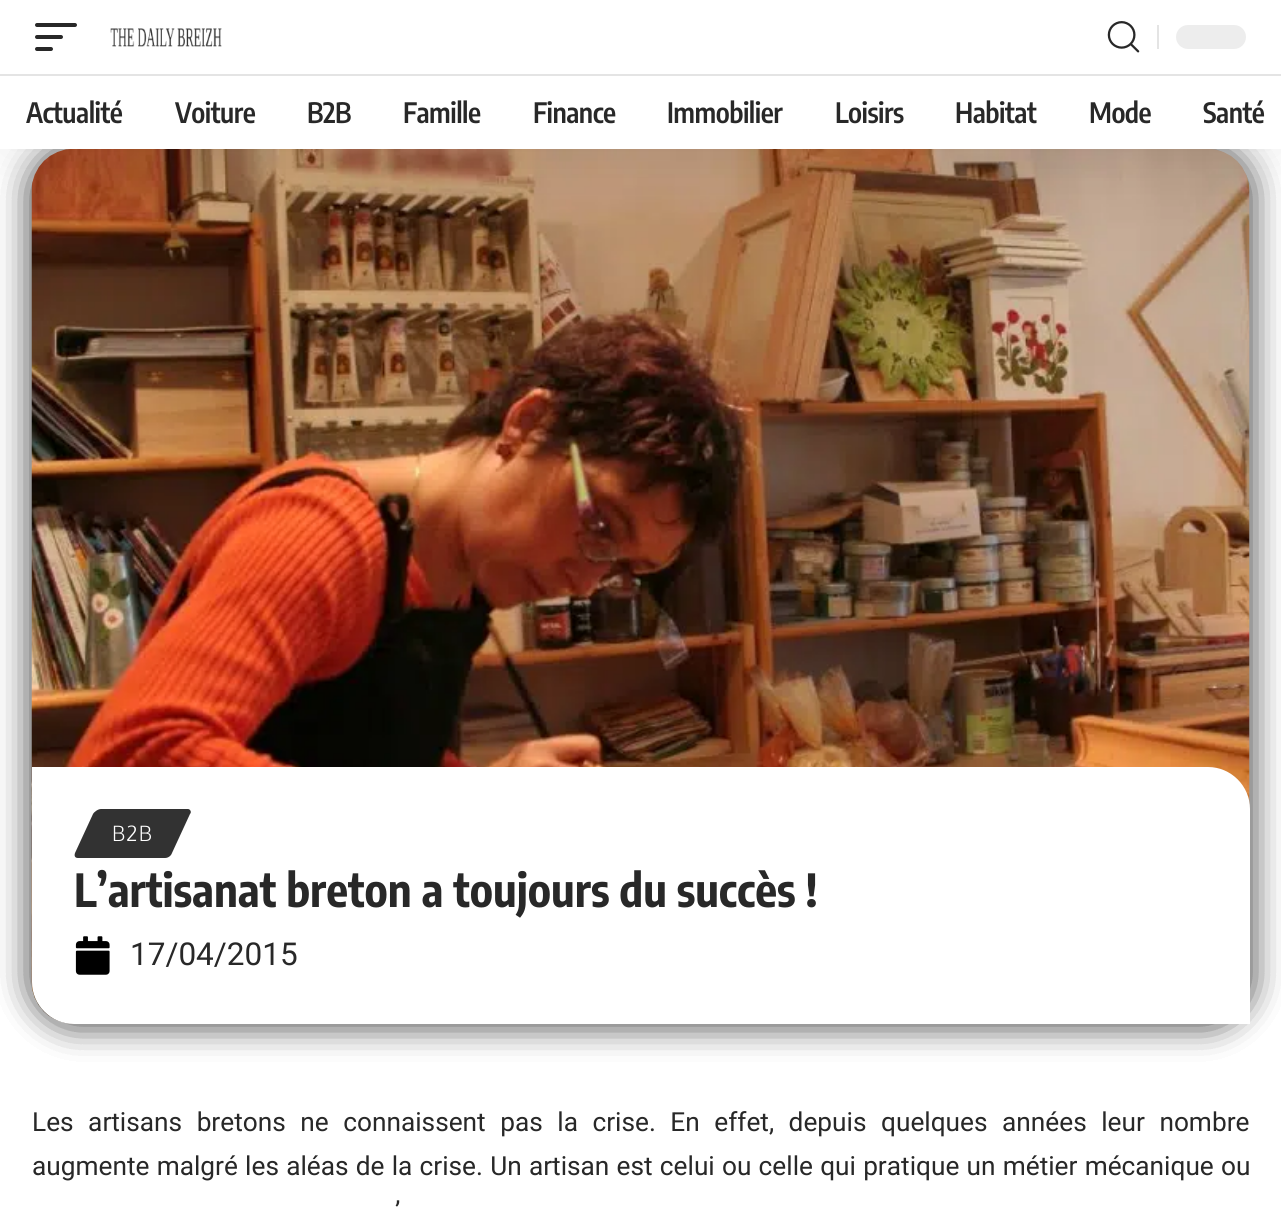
#include <cairo/cairo.h>
#include <math.h>
#include <stddef.h>

static cairo_t *cr;

static void use_color(int r, int g, int b) {
  cairo_set_source_rgb(cr, r / 255.0, g / 255.0, b / 255.0);
}

static void text(double x, double y, const char *s, const char *family, double size, int italic, int bold, int r, int g, int b) {
  cairo_select_font_face(cr, family, italic ? CAIRO_FONT_SLANT_ITALIC : CAIRO_FONT_SLANT_NORMAL,
    bold ? CAIRO_FONT_WEIGHT_BOLD : CAIRO_FONT_WEIGHT_NORMAL);
  cairo_set_font_size(cr, size);
  use_color(r, g, b);
  cairo_move_to(cr, x, y);
  cairo_show_text(cr, s);
}

static void spaced_text(double x, double y, const char *s, double letter, double word) {
  cairo_move_to(cr, x, y);
  while (*s) {
    char ch[5] = {0};
    int n = 0;
    do ch[n++] = *s++; while ((*s & 0xC0) == 0x80);
    cairo_show_text(cr, ch);
    cairo_rel_move_to(cr, letter + word * (*ch == ' '), 0);
  }
}

static void box(double x, double y, double w, double h, int r, int g, int b) {
  use_color(r, g, b);
  cairo_rectangle(cr, x, y, w, h);
  cairo_fill(cr);
}

static void round_rect(double x, double y, double w, double h, double r) {
  cairo_new_sub_path(cr);
  cairo_arc(cr, x + w - r, y + h - r, r, 0, M_PI / 2);
  cairo_arc(cr, x + r, y + h - r, r, M_PI / 2, M_PI);
  cairo_arc(cr, x + r, y + r, r, M_PI, 1.5 * M_PI);
  cairo_arc(cr, x + w - r, y + r, r, 1.5 * M_PI, 2 * M_PI);
  cairo_close_path(cr);
}

static void shadow(double x, double y, double w, double h, double r, double blur, double alpha) {
  cairo_push_group_with_content(cr, CAIRO_CONTENT_ALPHA);
  cairo_set_operator(cr, CAIRO_OPERATOR_SOURCE);
  for (int i = 15; i >= -15 && fmin(w, h) + blur * i / 3 > 0; i -= 2) {
    double e = blur * i / 6;
    cairo_set_source_rgba(cr, 0, 0, 0, alpha * erfc((i - 1) / 8.5) / 2);
    round_rect(x - e, y - e, w + 2 * e, h + 2 * e, fmax(0, fmin(r + e + blur * .6, fmin(w, h) / 2 + e)));
    cairo_fill(cr);
  }
  cairo_pattern_t *soft = cairo_pop_group(cr);
  cairo_mask(cr, soft);
  cairo_pattern_destroy(soft);
}

static void picture(const char *path, double x, double y, double w, double h) {
  cairo_surface_t *image = cairo_image_surface_create_from_png(path);
  cairo_save(cr);
  cairo_set_source_surface(cr, image, x, y);
  cairo_rectangle(cr, x, y, w, h);
  cairo_fill(cr);
  cairo_restore(cr);
  cairo_surface_destroy(image);
}

static void draw(void) {
  use_color(255, 255, 255);
  cairo_paint(cr);
  use_color(0, 0, 0);
  shadow(32, 149, 1218, 875, 42, 17.5, 0.31);
  shadow(32, 149, 1218, 875, 42, 17.5, 0.31);
  shadow(32, 149, 1218, 875, 42, 17.5, 0.31);
  picture("img_03.png", 31, 149, 1219, 875);
  shadow(0, 7, 1281, 149, 0, 26, 0.07);
  box(0, 0, 1281, 149, 255, 255, 255);
  use_color(40, 40, 40);
  round_rect(35, 23, 42, 4, 2);
  cairo_fill(cr);
  round_rect(35, 35, 28, 4, 2);
  cairo_fill(cr);
  round_rect(35, 47, 18, 4, 2);
  cairo_fill(cr);
  picture("img_01.png", 110, 28, 112, 19);
  picture("img_02.png", 1107, 21, 33, 32);
  box(1157, 25, 2, 24, 228, 228, 228);
  use_color(237, 237, 237);
  round_rect(1176, 25, 70, 24, 12);
  cairo_fill(cr);
  box(0, 74, 1281, 2, 228, 228, 228);
  use_color(255, 255, 255);
  cairo_new_path(cr);
  cairo_move_to(cr, 32, 767);
  cairo_line_to(cr, 1208, 767);
  cairo_curve_to(cr, 1231, 767, 1250, 786, 1250, 809);
  cairo_line_to(cr, 1250, 1024);
  cairo_line_to(cr, 74, 1024);
  cairo_curve_to(cr, 51, 1024, 32, 1005, 32, 982);
  cairo_close_path(cr);
  cairo_fill(cr);
  use_color(50, 50, 50);
  cairo_new_path(cr);
  cairo_move_to(cr, 101, 809);
  cairo_line_to(cr, 188, 809);
  cairo_curve_to(cr, 190, 809, 192, 812, 190, 814);
  cairo_line_to(cr, 172, 853);
  cairo_curve_to(cr, 171, 856, 168, 858, 165, 858);
  cairo_line_to(cr, 78, 858);
  cairo_curve_to(cr, 75, 858, 74, 856, 75, 853);
  cairo_line_to(cr, 93, 814);
  cairo_curve_to(cr, 94, 812, 98, 809, 101, 809);
  cairo_close_path(cr);
  cairo_fill(cr);
  picture("img_04.png", 75, 936, 35, 39);
  cairo_select_font_face(cr, "Encode Sans Condensed SemiBold", CAIRO_FONT_SLANT_NORMAL, CAIRO_FONT_WEIGHT_NORMAL);
  cairo_set_font_size(cr, 28);
  use_color(40, 40, 40);
  spaced_text(26, 123, "Actualité", -0.5, 0);
  spaced_text(175, 123, "Voiture", -0.5, 0);
  spaced_text(307, 123, "B2B", -0.5, 0);
  spaced_text(403, 123, "Famille", -0.5, 0);
  spaced_text(533, 123, "Finance", -0.5, 0);
  spaced_text(667, 123, "Immobilier", -0.5, 0);
  spaced_text(835, 123, "Loisirs", -0.5, 0);
  spaced_text(955, 123, "Habitat", -0.5, 0);
  spaced_text(1089, 123, "Mode", -0.5, 0);
  spaced_text(1203, 123, "Santé", -0.5, 0);
  cairo_select_font_face(cr, "Oxygen Light", CAIRO_FONT_SLANT_NORMAL, CAIRO_FONT_WEIGHT_NORMAL);
  cairo_set_font_size(cr, 21);
  use_color(255, 255, 255);
  spaced_text(112, 841, "B2B", 1, 0);
  text(74, 907, "L’artisanat breton a toujours du succès !", "Encode Sans Condensed", 45.5, 0, 1, 40, 40, 40);
  text(130, 965, "17/04/2015", "Roboto", 31.5, 0, 0, 40, 40, 40);
  cairo_set_font_size(cr, 26.25);
  spaced_text(32, 1131, "Les artisans bretons ne connaissent pas la crise. En effet, depuis quelques années leur nombre", 0, 8);
  spaced_text(32, 1175, "augmente malgré les aléas de la crise. Un artisan est celui ou celle qui pratique un métier mécanique ou", 0, 0.7);
  spaced_text(395, 1220, "’", 0, 1);
}

int main(void) {
  cairo_surface_t *surface = cairo_image_surface_create(CAIRO_FORMAT_RGB24, 1281, 1209);
  cr = cairo_create(surface);
  cairo_font_options_t *options = cairo_font_options_create();
  cairo_font_options_set_hint_metrics(options, CAIRO_HINT_METRICS_OFF);
  cairo_font_options_set_hint_style(options, CAIRO_HINT_STYLE_NONE);
  cairo_set_font_options(cr, options);
  cairo_set_miter_limit(cr, 4);
  draw();
  cairo_surface_write_to_png(surface, "out.png");
  cairo_font_options_destroy(options);
  cairo_destroy(cr);
  cairo_surface_destroy(surface);
  return 0;
}
